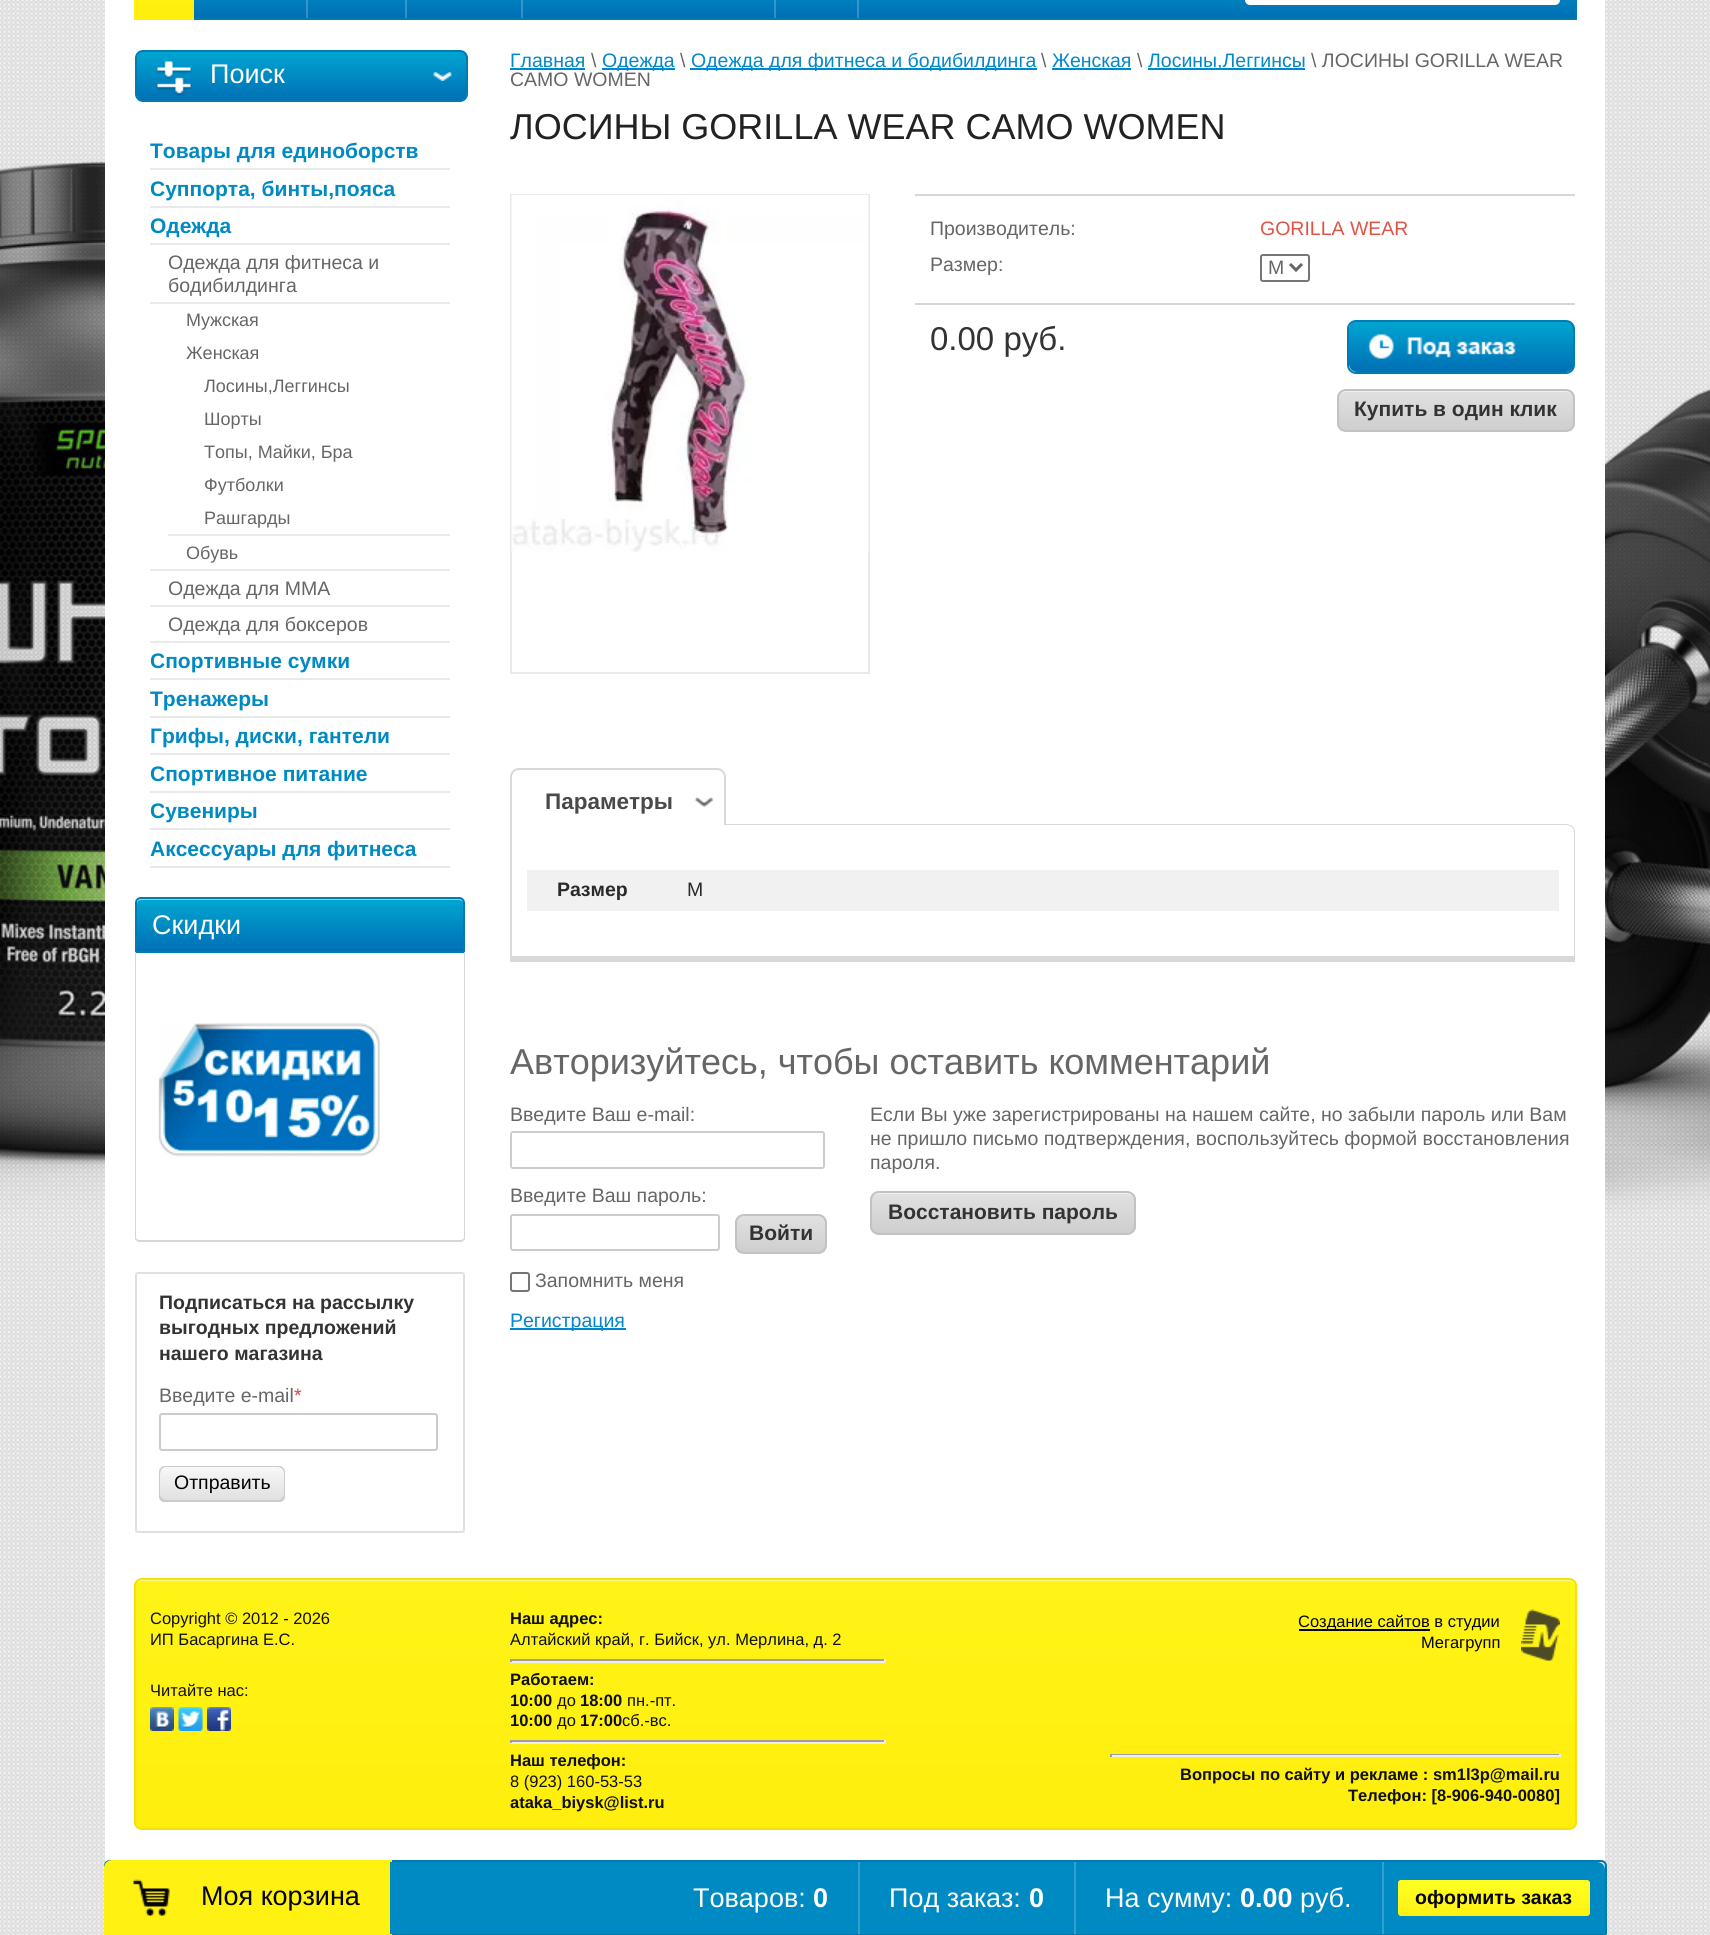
#include <cairo/cairo.h>
#include <math.h>
#include <stddef.h>

static cairo_t *cr;

static void use_color(int r, int g, int b) {
  cairo_set_source_rgb(cr, r / 255.0, g / 255.0, b / 255.0);
}

static void text(double x, double y, const char *s, const char *family, double size, int italic, int bold, int r, int g, int b) {
  cairo_select_font_face(cr, family, italic ? CAIRO_FONT_SLANT_ITALIC : CAIRO_FONT_SLANT_NORMAL,
    bold ? CAIRO_FONT_WEIGHT_BOLD : CAIRO_FONT_WEIGHT_NORMAL);
  cairo_set_font_size(cr, size);
  use_color(r, g, b);
  cairo_move_to(cr, x, y);
  cairo_show_text(cr, s);
}

static void box(double x, double y, double w, double h, int r, int g, int b) {
  use_color(r, g, b);
  cairo_rectangle(cr, x, y, w, h);
  cairo_fill(cr);
}

static void round_rect(double x, double y, double w, double h, double r) {
  cairo_new_sub_path(cr);
  cairo_arc(cr, x + w - r, y + h - r, r, 0, M_PI / 2);
  cairo_arc(cr, x + r, y + h - r, r, M_PI / 2, M_PI);
  cairo_arc(cr, x + r, y + r, r, M_PI, 1.5 * M_PI);
  cairo_arc(cr, x + w - r, y + r, r, 1.5 * M_PI, 2 * M_PI);
  cairo_close_path(cr);
}

static void picture(const char *path, double x, double y, double w, double h) {
  cairo_surface_t *image = cairo_image_surface_create_from_png(path);
  cairo_save(cr);
  cairo_set_source_surface(cr, image, x, y);
  cairo_rectangle(cr, x, y, w, h);
  cairo_fill(cr);
  cairo_restore(cr);
  cairo_surface_destroy(image);
}

static void draw(void) {
  cairo_pattern_t *gradient;
  use_color(255, 255, 255);
  cairo_paint(cr);
  picture("img_01.png", 0, 0, 1710, 1935);
  box(105, 0, 1500, 1870, 255, 255, 255);
  gradient = cairo_pattern_create_linear(855, 18, 855, -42);
  cairo_pattern_add_color_stop_rgba(gradient, 0, 0, 0.435, 0.71, 1);
  cairo_pattern_add_color_stop_rgba(gradient, 1, 0, 0.651, 0.82, 1);
  cairo_set_source(cr, gradient);
  cairo_pattern_destroy(gradient);
  cairo_rectangle(cr, 194, 0, 1381, 18);
  cairo_fill(cr);
  cairo_rectangle(cr, 135, -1, 1441, 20);
  use_color(0, 124, 176);
  cairo_stroke(cr);
  gradient = cairo_pattern_create_linear(164, 20, 164, -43);
  cairo_pattern_add_color_stop_rgba(gradient, 0, 1, 0.933, 0.055, 1);
  cairo_pattern_add_color_stop_rgba(gradient, 1, 1, 0.957, 0.086, 1);
  cairo_set_source(cr, gradient);
  cairo_pattern_destroy(gradient);
  cairo_rectangle(cr, 134, 0, 60, 20);
  cairo_fill(cr);
  cairo_set_source_rgba(cr, 1, 1, 1, 0.2);
  cairo_rectangle(cr, 306, 0, 2, 18);
  cairo_fill(cr);
  cairo_rectangle(cr, 405, 0, 2, 18);
  cairo_fill(cr);
  cairo_rectangle(cr, 521, 0, 2, 18);
  cairo_fill(cr);
  cairo_rectangle(cr, 774, 0, 2, 18);
  cairo_fill(cr);
  cairo_rectangle(cr, 857, 0, 2, 18);
  cairo_fill(cr);
  use_color(255, 255, 255);
  round_rect(1245, -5, 315, 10, 5);
  cairo_fill(cr);
  gradient = cairo_pattern_create_linear(302, 101, 302, 51);
  cairo_pattern_add_color_stop_rgba(gradient, 0, 0, 0.435, 0.71, 1);
  cairo_pattern_add_color_stop_rgba(gradient, 1, 0, 0.651, 0.82, 1);
  cairo_set_source(cr, gradient);
  cairo_pattern_destroy(gradient);
  round_rect(137, 51, 330, 50, 6);
  cairo_fill(cr);
  round_rect(136, 51, 331, 50, 7);
  use_color(0, 124, 176);
  cairo_stroke(cr);
  picture("img_02.png", 156, 61, 36, 35);
  picture("img_03.png", 433, 72, 19, 9);
  box(150, 168, 300, 2, 233, 233, 233);
  box(150, 206, 300, 2, 233, 233, 233);
  box(150, 243, 300, 2, 233, 233, 233);
  box(150, 302, 300, 2, 233, 233, 233);
  box(150, 569, 300, 2, 233, 233, 233);
  box(168, 534, 282, 2, 233, 233, 233);
  box(150, 605, 300, 2, 233, 233, 233);
  box(150, 641, 300, 2, 233, 233, 233);
  box(150, 678, 300, 2, 233, 233, 233);
  box(150, 716, 300, 2, 233, 233, 233);
  box(150, 753, 300, 2, 233, 233, 233);
  box(150, 791, 300, 2, 233, 233, 233);
  box(150, 828, 300, 2, 233, 233, 233);
  box(150, 866, 300, 2, 233, 233, 233);
  gradient = cairo_pattern_create_linear(300, 951, 300, 899);
  cairo_pattern_add_color_stop_rgba(gradient, 0, 0, 0.439, 0.714, 1);
  cairo_pattern_add_color_stop_rgba(gradient, 1, 0, 0.651, 0.82, 1);
  cairo_set_source(cr, gradient);
  cairo_pattern_destroy(gradient);
  cairo_new_path(cr);
  cairo_move_to(cr, 142, 899);
  cairo_line_to(cr, 459, 899);
  cairo_curve_to(cr, 462, 899, 464, 901, 464, 904);
  cairo_line_to(cr, 464, 951);
  cairo_line_to(cr, 137, 951);
  cairo_line_to(cr, 137, 904);
  cairo_curve_to(cr, 137, 901, 139, 899, 142, 899);
  cairo_close_path(cr);
  cairo_fill(cr);
  cairo_set_source_rgba(cr, 1, 1, 1, 0.52);
  cairo_new_path(cr);
  cairo_move_to(cr, 141, 900);
  cairo_line_to(cr, 459, 900);
  cairo_curve_to(cr, 461, 900, 464, 902, 464, 904);
  cairo_curve_to(cr, 464, 901, 462, 899, 459, 899);
  cairo_line_to(cr, 142, 899);
  cairo_curve_to(cr, 140, 899, 139, 900, 138, 901);
  cairo_close_path(cr);
  cairo_fill(cr);
  cairo_new_path(cr);
  cairo_move_to(cr, 141, 898);
  cairo_line_to(cr, 459, 898);
  cairo_curve_to(cr, 462, 898, 464, 900, 464, 903);
  cairo_line_to(cr, 464, 951.5);
  cairo_curve_to(cr, 464, 952, 464, 952, 463.5, 952);
  cairo_line_to(cr, 136.5, 952);
  cairo_curve_to(cr, 136, 952, 136, 952, 136, 951.5);
  cairo_line_to(cr, 136, 903);
  cairo_curve_to(cr, 136, 900, 138, 898, 141, 898);
  cairo_close_path(cr);
  use_color(0, 124, 176);
  cairo_stroke(cr);
  use_color(214, 214, 214);
  cairo_set_fill_rule(cr, CAIRO_FILL_RULE_EVEN_ODD);
  cairo_new_path(cr);
  cairo_move_to(cr, 135, 952);
  cairo_line_to(cr, 465, 952);
  cairo_line_to(cr, 465, 1238);
  cairo_curve_to(cr, 465, 1240, 463, 1242, 460, 1242);
  cairo_line_to(cr, 140, 1242);
  cairo_curve_to(cr, 137, 1242, 135, 1240, 135, 1238);
  cairo_close_path(cr);
  cairo_move_to(cr, 136, 952);
  cairo_line_to(cr, 464, 952);
  cairo_line_to(cr, 464, 1238);
  cairo_curve_to(cr, 464, 1239, 462, 1240, 460, 1240);
  cairo_line_to(cr, 140, 1240);
  cairo_curve_to(cr, 138, 1240, 136, 1239, 136, 1238);
  cairo_close_path(cr);
  cairo_fill(cr);
  picture("img_04.png", 158, 1023, 222, 134);
  round_rect(136, 1273, 328, 259, 2);
  use_color(226, 224, 220);
  cairo_stroke(cr);
  round_rect(160, 1414, 277, 36, 2);
  use_color(204, 204, 204);
  cairo_stroke(cr);
  gradient = cairo_pattern_create_linear(222, 1466, 222, 1502);
  cairo_pattern_add_color_stop_rgba(gradient, 0, 0.973, 0.973, 0.973, 1);
  cairo_pattern_add_color_stop_rgba(gradient, 1, 0.875, 0.875, 0.875, 1);
  cairo_set_source(cr, gradient);
  cairo_pattern_destroy(gradient);
  round_rect(159, 1466, 126, 36, 6);
  cairo_fill(cr);
  use_color(204, 204, 204);
  cairo_set_fill_rule(cr, CAIRO_FILL_RULE_WINDING);
  cairo_new_path(cr);
  cairo_move_to(cr, 160, 1468);
  cairo_curve_to(cr, 160, 1469, 159, 1471, 159, 1472);
  cairo_line_to(cr, 159, 1496);
  cairo_curve_to(cr, 159, 1499, 162, 1502, 165, 1502);
  cairo_line_to(cr, 279, 1502);
  cairo_curve_to(cr, 282, 1502, 284, 1500, 285, 1498);
  cairo_curve_to(cr, 284, 1499, 282, 1500, 280, 1500);
  cairo_line_to(cr, 166, 1500);
  cairo_curve_to(cr, 163, 1500, 160, 1497, 160, 1494);
  cairo_close_path(cr);
  cairo_fill(cr);
  cairo_new_path(cr);
  cairo_move_to(cr, 164, 1467);
  cairo_line_to(cr, 278, 1467);
  cairo_curve_to(cr, 281, 1467, 284, 1470, 284, 1473);
  cairo_line_to(cr, 284, 1497);
  cairo_curve_to(cr, 284, 1498, 283, 1500, 282, 1501);
  cairo_curve_to(cr, 284, 1500, 285, 1498, 285, 1496);
  cairo_line_to(cr, 285, 1472);
  cairo_curve_to(cr, 285, 1469, 282, 1466, 279, 1466);
  cairo_line_to(cr, 165, 1466);
  cairo_curve_to(cr, 163, 1466, 162, 1467, 161, 1468);
  cairo_close_path(cr);
  cairo_fill(cr);
  cairo_new_path(cr);
  cairo_move_to(cr, 159, 1498);
  cairo_curve_to(cr, 160, 1500, 162, 1502, 165, 1502);
  cairo_line_to(cr, 279, 1502);
  cairo_curve_to(cr, 282, 1502, 285, 1499, 285, 1496);
  cairo_line_to(cr, 285, 1472);
  cairo_curve_to(cr, 285, 1471, 284, 1469, 284, 1468);
  cairo_line_to(cr, 284, 1494);
  cairo_curve_to(cr, 284, 1497, 281, 1500, 278, 1500);
  cairo_line_to(cr, 164, 1500);
  cairo_curve_to(cr, 162, 1500, 160, 1499, 159, 1498);
  cairo_close_path(cr);
  cairo_fill(cr);
  cairo_new_path(cr);
  cairo_move_to(cr, 166, 1467);
  cairo_line_to(cr, 280, 1467);
  cairo_curve_to(cr, 281, 1467, 283, 1467, 283, 1468);
  cairo_curve_to(cr, 282, 1467, 281, 1466, 279, 1466);
  cairo_line_to(cr, 165, 1466);
  cairo_curve_to(cr, 162, 1466, 159, 1469, 159, 1472);
  cairo_line_to(cr, 159, 1496);
  cairo_curve_to(cr, 159, 1498, 160, 1500, 162, 1501);
  cairo_curve_to(cr, 158, 1498, 160, 1489, 160, 1485);
  cairo_curve_to(cr, 160, 1480, 158, 1467, 166, 1467);
  cairo_close_path(cr);
  cairo_fill(cr);
  box(510, 68, 75, 2, 0, 136, 204);
  box(602, 68, 73, 2, 0, 136, 204);
  box(690, 68, 347, 2, 0, 136, 204);
  box(1052, 68, 79, 2, 0, 136, 204);
  box(1148, 68, 157, 2, 0, 136, 204);
  cairo_rectangle(cr, 511, 195, 358, 478);
  use_color(233, 233, 233);
  cairo_stroke(cr);
  picture("img_05.png", 511, 195, 358, 357);
  box(915, 194, 660, 2, 214, 214, 214);
  round_rect(1261, 255, 48, 26, 2);
  use_color(118, 118, 118);
  cairo_stroke(cr);
  cairo_new_path(cr);
  cairo_move_to(cr, 1290, 264);
  cairo_line_to(cr, 1296, 270);
  cairo_line_to(cr, 1302, 264);
  use_color(102, 102, 102);
  cairo_set_line_width(cr, 3);
  cairo_stroke(cr);
  box(915, 303, 660, 2, 214, 214, 214);
  gradient = cairo_pattern_create_linear(1461, 372, 1461, 321);
  cairo_pattern_add_color_stop_rgba(gradient, 0, 0, 0.435, 0.71, 1);
  cairo_pattern_add_color_stop_rgba(gradient, 1, 0, 0.651, 0.82, 1);
  cairo_set_source(cr, gradient);
  cairo_pattern_destroy(gradient);
  round_rect(1349, 321, 225, 51, 8);
  cairo_fill(cr);
  round_rect(1348, 321, 226, 52, 8);
  use_color(0, 124, 176);
  cairo_set_line_width(cr, 2);
  cairo_stroke(cr);
  picture("img_06.png", 1368, 334, 148, 25);
  cairo_save(cr);
  round_rect(1337, 389, 238, 43, 9);
  cairo_clip(cr);
  gradient = cairo_pattern_create_linear(1456, 431, 1456, 390);
  cairo_pattern_add_color_stop_rgba(gradient, 0, 0.808, 0.808, 0.808, 1);
  cairo_pattern_add_color_stop_rgba(gradient, 1, 0.882, 0.882, 0.882, 1);
  cairo_set_source(cr, gradient);
  cairo_pattern_destroy(gradient);
  cairo_rectangle(cr, 1337, 390, 238, 41);
  cairo_fill(cr);
  cairo_restore(cr);
  use_color(240, 240, 240);
  cairo_new_path(cr);
  cairo_move_to(cr, 1346, 392);
  cairo_line_to(cr, 1566, 392);
  cairo_curve_to(cr, 1570, 392, 1574, 395, 1574, 399);
  cairo_line_to(cr, 1574, 398);
  cairo_curve_to(cr, 1574, 394, 1570, 390, 1566, 390);
  cairo_line_to(cr, 1346, 390);
  cairo_curve_to(cr, 1342, 390, 1338, 394, 1338, 398);
  cairo_line_to(cr, 1338, 399);
  cairo_curve_to(cr, 1338, 395, 1341, 392, 1346, 392);
  cairo_close_path(cr);
  cairo_fill(cr);
  round_rect(1338, 390, 236, 41, 8);
  use_color(194, 194, 194);
  cairo_stroke(cr);
  box(510, 956, 1065, 6, 216, 216, 216);
  cairo_set_fill_rule(cr, CAIRO_FILL_RULE_EVEN_ODD);
  cairo_new_path(cr);
  cairo_move_to(cr, 510, 824);
  cairo_line_to(cr, 1566, 824);
  cairo_curve_to(cr, 1571, 824, 1575, 828, 1575, 832);
  cairo_line_to(cr, 1575, 956);
  cairo_line_to(cr, 510, 956);
  cairo_close_path(cr);
  cairo_move_to(cr, 512, 825);
  cairo_line_to(cr, 1566, 825);
  cairo_curve_to(cr, 1570, 825, 1574, 828, 1574, 832);
  cairo_line_to(cr, 1574, 956);
  cairo_line_to(cr, 512, 956);
  cairo_close_path(cr);
  cairo_fill(cr);
  use_color(255, 255, 255);
  cairo_new_path(cr);
  cairo_move_to(cr, 520, 770);
  cairo_line_to(cr, 717, 770);
  cairo_curve_to(cr, 721.5, 770, 725, 773.5, 725, 778);
  cairo_line_to(cr, 725, 825);
  cairo_line_to(cr, 512, 825);
  cairo_line_to(cr, 512, 778);
  cairo_curve_to(cr, 512, 773.5, 515.5, 770, 520, 770);
  cairo_close_path(cr);
  cairo_fill(cr);
  picture("img_07.png", 694, 797, 20, 10);
  use_color(216, 216, 216);
  cairo_new_path(cr);
  cairo_move_to(cr, 519, 768);
  cairo_line_to(cr, 717, 768);
  cairo_curve_to(cr, 722, 768, 726, 772, 726, 777);
  cairo_line_to(cr, 726, 825);
  cairo_line_to(cr, 510, 825);
  cairo_line_to(cr, 510, 777);
  cairo_curve_to(cr, 510, 772, 514, 768, 519, 768);
  cairo_close_path(cr);
  cairo_move_to(cr, 519, 770);
  cairo_line_to(cr, 717, 770);
  cairo_curve_to(cr, 721, 770, 724, 773, 724, 777);
  cairo_line_to(cr, 724, 825);
  cairo_line_to(cr, 512, 825);
  cairo_line_to(cr, 512, 777);
  cairo_curve_to(cr, 512, 773, 515, 770, 519, 770);
  cairo_close_path(cr);
  cairo_fill(cr);
  box(527, 870, 1032, 41, 241, 241, 241);
  round_rect(511, 1132, 313, 36, 2);
  use_color(204, 204, 204);
  cairo_stroke(cr);
  round_rect(511, 1215, 208, 35, 2);
  cairo_stroke(cr);
  cairo_save(cr);
  cairo_set_fill_rule(cr, CAIRO_FILL_RULE_WINDING);
  round_rect(735, 1214, 92, 40, 9);
  cairo_clip(cr);
  gradient = cairo_pattern_create_linear(781, 1253, 781, 1215);
  cairo_pattern_add_color_stop_rgba(gradient, 0, 0.808, 0.808, 0.808, 1);
  cairo_pattern_add_color_stop_rgba(gradient, 1, 0.882, 0.882, 0.882, 1);
  cairo_set_source(cr, gradient);
  cairo_pattern_destroy(gradient);
  cairo_rectangle(cr, 735, 1215, 92, 38);
  cairo_fill(cr);
  cairo_restore(cr);
  round_rect(736, 1215, 90, 38, 8);
  use_color(194, 194, 194);
  cairo_stroke(cr);
  round_rect(511, 1273, 18, 18, 2);
  use_color(118, 118, 118);
  cairo_stroke(cr);
  box(510, 1328, 116, 2, 0, 136, 204);
  cairo_save(cr);
  cairo_set_fill_rule(cr, CAIRO_FILL_RULE_WINDING);
  round_rect(870, 1191, 266, 44, 9);
  cairo_clip(cr);
  gradient = cairo_pattern_create_linear(1003, 1233, 1003, 1193);
  cairo_pattern_add_color_stop_rgba(gradient, 0, 0.808, 0.808, 0.808, 1);
  cairo_pattern_add_color_stop_rgba(gradient, 1, 0.882, 0.882, 0.882, 1);
  cairo_set_source(cr, gradient);
  cairo_pattern_destroy(gradient);
  cairo_rectangle(cr, 870, 1193, 266, 40);
  cairo_fill(cr);
  cairo_restore(cr);
  use_color(241, 241, 241);
  cairo_set_fill_rule(cr, CAIRO_FILL_RULE_WINDING);
  cairo_new_path(cr);
  cairo_move_to(cr, 879, 1194);
  cairo_line_to(cr, 1126, 1194);
  cairo_curve_to(cr, 1131, 1194, 1134, 1197, 1134, 1202);
  cairo_curve_to(cr, 1134, 1198, 1132, 1194, 1128, 1193);
  cairo_line_to(cr, 878, 1193);
  cairo_curve_to(cr, 874, 1194, 872, 1198, 872, 1202);
  cairo_curve_to(cr, 872, 1197, 875, 1194, 879, 1194);
  cairo_close_path(cr);
  cairo_fill(cr);
  round_rect(871, 1192, 264, 42, 8);
  use_color(194, 194, 194);
  cairo_stroke(cr);
  cairo_save(cr);
  round_rect(134, 1578, 1443, 252, 8);
  cairo_clip(cr);
  gradient = cairo_pattern_create_linear(855, 1829, 855, 1580);
  cairo_pattern_add_color_stop_rgba(gradient, 0, 1, 0.933, 0.055, 1);
  cairo_pattern_add_color_stop_rgba(gradient, 1, 1, 0.957, 0.086, 1);
  cairo_set_source(cr, gradient);
  cairo_pattern_destroy(gradient);
  cairo_rectangle(cr, 134, 1580, 1443, 249);
  cairo_fill(cr);
  cairo_restore(cr);
  use_color(255, 250, 143);
  cairo_new_path(cr);
  cairo_move_to(cr, 141, 1581);
  cairo_line_to(cr, 1569, 1581);
  cairo_curve_to(cr, 1572, 1581, 1575, 1584, 1575, 1587);
  cairo_curve_to(cr, 1575, 1583, 1573, 1580, 1569, 1580);
  cairo_line_to(cr, 141, 1580);
  cairo_curve_to(cr, 137, 1580, 135, 1583, 135, 1587);
  cairo_curve_to(cr, 135, 1584, 138, 1581, 141, 1581);
  cairo_close_path(cr);
  cairo_fill(cr);
  round_rect(135, 1579, 1441, 250, 7);
  use_color(243, 226, 10);
  cairo_stroke(cr);
  picture("img_08.png", 150, 1707, 24, 24);
  picture("img_09.png", 178, 1707, 25, 24);
  picture("img_10.png", 207, 1707, 24, 24);
  box(510, 1659, 375, 2, 159, 159, 159);
  box(884, 1659, 2, 3, 238, 238, 238);
  box(510, 1661, 375, 2, 238, 238, 238);
  box(510, 1659, 2, 3, 159, 159, 159);
  box(510, 1740, 375, 2, 159, 159, 159);
  box(884, 1740, 2, 3, 238, 238, 238);
  box(510, 1742, 375, 2, 238, 238, 238);
  box(510, 1740, 2, 3, 159, 159, 159);
  picture("img_11.png", 1521, 1609, 39, 52);
  box(1299, 1629, 131, 2, 0, 0, 0);
  box(1110, 1754, 450, 1, 159, 159, 159);
  box(1559, 1754, 2, 3, 238, 238, 238);
  box(1110, 1755, 450, 2, 238, 238, 238);
  box(1110, 1754, 2, 3, 159, 159, 159);
  picture("img_12.png", 104, 1860, 1503, 75);
  use_color(231, 231, 231);
  cairo_new_path(cr);
  cairo_move_to(cr, 110, 1863);
  cairo_line_to(cr, 1600, 1863);
  cairo_curve_to(cr, 1603, 1863, 1605, 1865, 1605, 1868);
  cairo_line_to(cr, 1605, 1867);
  cairo_curve_to(cr, 1605, 1864, 1603, 1862, 1600, 1862);
  cairo_line_to(cr, 110, 1862);
  cairo_curve_to(cr, 107, 1862, 105, 1864, 105, 1867);
  cairo_line_to(cr, 105, 1868);
  cairo_curve_to(cr, 105, 1865, 107, 1863, 110, 1863);
  cairo_close_path(cr);
  cairo_fill(cr);
  cairo_new_path(cr);
  cairo_move_to(cr, 110, 1861);
  cairo_line_to(cr, 1601, 1861);
  cairo_curve_to(cr, 1604, 1861, 1606, 1863, 1606, 1866);
  cairo_line_to(cr, 1606, 1933.5);
  cairo_curve_to(cr, 1606, 1934, 1606, 1934, 1605.5, 1934);
  cairo_line_to(cr, 105.5, 1934);
  cairo_curve_to(cr, 105, 1934, 105, 1934, 105, 1933.5);
  cairo_line_to(cr, 105, 1866);
  cairo_curve_to(cr, 105, 1863, 107, 1861, 110, 1861);
  cairo_close_path(cr);
  use_color(0, 124, 176);
  cairo_stroke(cr);
  use_color(255, 241, 18);
  cairo_new_path(cr);
  cairo_move_to(cr, 112, 1860);
  cairo_line_to(cr, 392, 1860);
  cairo_line_to(cr, 392, 1935);
  cairo_line_to(cr, 104, 1935);
  cairo_line_to(cr, 104, 1868);
  cairo_curve_to(cr, 104, 1863.5, 107.5, 1860, 112, 1860);
  cairo_close_path(cr);
  cairo_fill(cr);
  picture("img_13.png", 133, 1879, 37, 37);
  use_color(0, 138, 195);
  cairo_new_path(cr);
  cairo_move_to(cr, 390, 1862);
  cairo_line_to(cr, 1597, 1862);
  cairo_curve_to(cr, 1601.5, 1862, 1605, 1865.5, 1605, 1870);
  cairo_line_to(cr, 1605, 1934);
  cairo_line_to(cr, 390, 1934);
  cairo_close_path(cr);
  cairo_fill(cr);
  box(858, 1862, 2, 72, 51, 161, 207);
  box(1074, 1862, 2, 72, 51, 161, 207);
  box(1382, 1862, 2, 72, 51, 161, 207);
  gradient = cairo_pattern_create_linear(1494, 1916, 1494, 1880);
  cairo_pattern_add_color_stop_rgba(gradient, 0, 1, 0.945, 0.071, 1);
  cairo_pattern_add_color_stop_rgba(gradient, 1, 1, 1, 0.141, 1);
  cairo_set_source(cr, gradient);
  cairo_pattern_destroy(gradient);
  round_rect(1398, 1880, 192, 36, 3);
  cairo_fill(cr);
  text(210, 83, "Поиск", "Liberation Sans", 27, 0, 0, 255, 255, 255);
  text(150, 158, "Товары для единоборств", "Liberation Sans", 21, 0, 1, 0, 138, 195);
  text(150, 196, "Суппорта, бинты,пояса", "Liberation Sans", 21, 0, 1, 0, 138, 195);
  text(150, 233, "Одежда", "Liberation Sans", 21, 0, 1, 0, 138, 195);
  text(168, 269, "Одежда для фитнеса и", "Liberation Sans", 19.5, 0, 0, 102, 102, 102);
  text(168, 292, "бодибилдинга", "Liberation Sans", 19.5, 0, 0, 102, 102, 102);
  text(186, 326, "Мужская", "Liberation Sans", 18, 0, 0, 102, 102, 102);
  text(186, 359, "Женская", "Liberation Sans", 18, 0, 0, 102, 102, 102);
  text(204, 392, "Лосины,Леггинсы", "Liberation Sans", 18, 0, 0, 102, 102, 102);
  text(204, 425, "Шорты", "Liberation Sans", 18, 0, 0, 102, 102, 102);
  text(204, 458, "Топы, Майки, Бра", "Liberation Sans", 18, 0, 0, 102, 102, 102);
  text(204, 491, "Футболки", "Liberation Sans", 18, 0, 0, 102, 102, 102);
  text(204, 524, "Рашгарды", "Liberation Sans", 18, 0, 0, 102, 102, 102);
  text(186, 559, "Обувь", "Liberation Sans", 18, 0, 0, 102, 102, 102);
  text(168, 595, "Одежда для ММА", "Liberation Sans", 19.5, 0, 0, 102, 102, 102);
  text(168, 631, "Одежда для боксеров", "Liberation Sans", 19.5, 0, 0, 102, 102, 102);
  text(150, 668, "Спортивные сумки", "Liberation Sans", 21, 0, 1, 0, 138, 195);
  text(150, 706, "Тренажеры", "Liberation Sans", 21, 0, 1, 0, 138, 195);
  text(150, 743, "Грифы, диски, гантели", "Liberation Sans", 21, 0, 1, 0, 138, 195);
  text(150, 781, "Спортивное питание", "Liberation Sans", 21, 0, 1, 0, 138, 195);
  text(150, 818, "Сувениры", "Liberation Sans", 21, 0, 1, 0, 138, 195);
  text(150, 856, "Аксессуары для фитнеса", "Liberation Sans", 21, 0, 1, 0, 138, 195);
  text(152, 934, "Скидки", "Liberation Sans", 27, 0, 0, 255, 255, 255);
  text(159, 1309, "Подписаться на рассылку", "Liberation Sans", 19.5, 0, 1, 51, 51, 51);
  text(159, 1334, "выгодных предложений", "Liberation Sans", 19.5, 0, 1, 51, 51, 51);
  text(159, 1360, "нашего магазина", "Liberation Sans", 19.5, 0, 1, 51, 51, 51);
  text(159, 1402, "Введите e-mail", "Liberation Sans", 19.5, 0, 0, 102, 102, 102);
  text(294, 1402, "*", "Liberation Sans", 19.5, 0, 0, 235, 60, 60);
  text(174, 1489, "Отправить", "Liberation Sans", 19.5, 0, 0, 4, 4, 4);
  text(510, 67, "Главная", "Liberation Sans", 19.5, 0, 0, 0, 136, 204);
  text(591, 67, "\\", "Liberation Sans", 19.5, 0, 0, 102, 102, 102);
  text(602, 67, "Одежда", "Liberation Sans", 19.5, 0, 0, 0, 136, 204);
  text(680, 67, "\\", "Liberation Sans", 19.5, 0, 0, 102, 102, 102);
  text(691, 67, "Одежда для фитнеса и бодибилдинга", "Liberation Sans", 19.5, 0, 0, 0, 136, 204);
  text(1041, 67, "\\", "Liberation Sans", 19.5, 0, 0, 102, 102, 102);
  text(1052, 67, "Женская", "Liberation Sans", 19.5, 0, 0, 0, 136, 204);
  text(1137, 67, "\\", "Liberation Sans", 19.5, 0, 0, 102, 102, 102);
  text(1148, 67, "Лосины,Леггинсы", "Liberation Sans", 19.5, 0, 0, 0, 136, 204);
  text(1311, 67, "\\ ЛОСИНЫ GORILLA WEAR", "Liberation Sans", 19.5, 0, 0, 102, 102, 102);
  text(510, 86, "CAMO WOMEN", "Liberation Sans", 19.5, 0, 0, 102, 102, 102);
  text(510, 139, "ЛОСИНЫ GORILLA WEAR CAMO WOMEN", "Liberation Sans", 36, 0, 0, 34, 34, 34);
  text(930, 235, "Производитель:", "Liberation Sans", 19.5, 0, 0, 102, 102, 102);
  text(1260, 235, "GORILLA WEAR", "Liberation Sans", 19.5, 0, 0, 225, 83, 68);
  text(930, 271, "Размер:", "Liberation Sans", 19.5, 0, 0, 102, 102, 102);
  text(1268, 274, "M", "Liberation Sans", 19.5, 0, 0, 102, 102, 102);
  text(930, 350, "0.00 руб.", "Liberation Sans", 33, 0, 0, 51, 51, 51);
  text(1354, 416, "Купить в один клик", "Liberation Sans", 21, 0, 1, 51, 51, 51);
  text(545, 809, "Параметры", "Liberation Sans", 22.5, 0, 1, 73, 73, 73);
  text(557, 896, "Размер", "Liberation Sans", 19.5, 0, 1, 42, 42, 42);
  text(687, 896, "M", "Liberation Sans", 19.5, 0, 0, 42, 42, 42);
  text(510, 1074, "Авторизуйтесь, чтобы оставить комментарий", "Liberation Sans", 36, 0, 0, 102, 102, 102);
  text(510, 1121, "Введите Ваш e-mail:", "Liberation Sans", 19.5, 0, 0, 102, 102, 102);
  text(510, 1202, "Введите Ваш пароль:", "Liberation Sans", 19.5, 0, 0, 102, 102, 102);
  text(749, 1240, "Войти", "Liberation Sans", 21, 0, 1, 51, 51, 51);
  text(535, 1287, "Запомнить меня", "Liberation Sans", 19.5, 0, 0, 102, 102, 102);
  text(510, 1327, "Регистрация", "Liberation Sans", 19.5, 0, 0, 0, 136, 204);
  text(870, 1121, "Если Вы уже зарегистрированы на нашем сайте, но забыли пароль или Вам", "Liberation Sans", 19.5, 0, 0, 102, 102, 102);
  text(870, 1145, "не пришло письмо подтверждения, воспользуйтесь формой восстановления", "Liberation Sans", 19.5, 0, 0, 102, 102, 102);
  text(870, 1169, "пароля.", "Liberation Sans", 19.5, 0, 0, 102, 102, 102);
  text(888, 1219, "Восстановить пароль", "Liberation Sans", 21, 0, 1, 51, 51, 51);
  text(150, 1624, "Copyright © 2012 - 2026", "Liberation Sans", 16.5, 0, 0, 15, 15, 15);
  text(150, 1645, "ИП Басаргина Е.С.", "Liberation Sans", 16.5, 0, 0, 15, 15, 15);
  text(150, 1696, "Читайте нас:", "Liberation Sans", 16.5, 0, 0, 15, 15, 15);
  text(510, 1624, "Наш адрес:", "Liberation Sans", 16.5, 0, 1, 15, 15, 15);
  text(510, 1645, "Алтайский край, г. Бийск, ул. Мерлина, д. 2", "Liberation Sans", 16.5, 0, 0, 15, 15, 15);
  text(510, 1685, "Работаем:", "Liberation Sans", 16.5, 0, 1, 15, 15, 15);
  text(510, 1706, "10:00", "Liberation Sans", 16.5, 0, 1, 15, 15, 15);
  text(557, 1706, "до", "Liberation Sans", 16.5, 0, 0, 15, 15, 15);
  text(580, 1706, "18:00", "Liberation Sans", 16.5, 0, 1, 15, 15, 15);
  text(627, 1706, "пн.-пт.", "Liberation Sans", 16.5, 0, 0, 15, 15, 15);
  text(510, 1726, "10:00", "Liberation Sans", 16.5, 0, 1, 15, 15, 15);
  text(557, 1726, "до", "Liberation Sans", 16.5, 0, 0, 15, 15, 15);
  text(580, 1726, "17:00", "Liberation Sans", 16.5, 0, 1, 15, 15, 15);
  text(622, 1726, "сб.-вс.", "Liberation Sans", 16.5, 0, 0, 15, 15, 15);
  text(510, 1766, "Наш телефон:", "Liberation Sans", 16.5, 0, 1, 15, 15, 15);
  text(510, 1787, "8 (923) 160-53-53", "Liberation Sans", 16.5, 0, 0, 15, 15, 15);
  text(510, 1808, "ataka_biysk@list.ru", "Liberation Sans", 16.5, 0, 1, 15, 15, 15);
  text(1298, 1627, "Создание сайтов в студии", "Liberation Sans", 16.5, 0, 0, 4, 4, 4);
  text(1421, 1648, "Мегагрупп", "Liberation Sans", 16.5, 0, 0, 4, 4, 4);
  text(1180, 1780, "Вопросы по сайту и рекламе : sm1l3p@mail.ru", "Liberation Sans", 16.5, 0, 1, 15, 15, 15);
  text(1348, 1801, "Телефон: [8-906-940-0080]", "Liberation Sans", 16.5, 0, 1, 15, 15, 15);
  text(201, 1905, "Моя корзина", "Liberation Sans", 27, 0, 0, 4, 4, 4);
  text(693, 1907, "Товаров:", "Liberation Sans", 27, 0, 0, 255, 255, 255);
  text(813, 1907, "0", "Liberation Sans", 27, 0, 1, 255, 255, 255);
  text(889, 1907, "Под заказ:", "Liberation Sans", 27, 0, 0, 255, 255, 255);
  text(1029, 1907, "0", "Liberation Sans", 27, 0, 1, 255, 255, 255);
  text(1105, 1907, "На сумму:", "Liberation Sans", 27, 0, 0, 255, 255, 255);
  text(1240, 1907, "0.00", "Liberation Sans", 27, 0, 1, 255, 255, 255);
  text(1300, 1907, "руб.", "Liberation Sans", 27, 0, 0, 255, 255, 255);
  text(1415, 1904, "оформить заказ", "Liberation Sans", 19.5, 0, 1, 4, 4, 4);
}

int main(void) {
  cairo_surface_t *surface = cairo_image_surface_create(CAIRO_FORMAT_RGB24, 1710, 1935);
  cr = cairo_create(surface);
  cairo_font_options_t *options = cairo_font_options_create();
  cairo_font_options_set_hint_metrics(options, CAIRO_HINT_METRICS_OFF);
  cairo_font_options_set_hint_style(options, CAIRO_HINT_STYLE_NONE);
  cairo_set_font_options(cr, options);
  cairo_set_miter_limit(cr, 4);
  draw();
  cairo_surface_write_to_png(surface, "out.png");
  cairo_font_options_destroy(options);
  cairo_destroy(cr);
  cairo_surface_destroy(surface);
  return 0;
}
